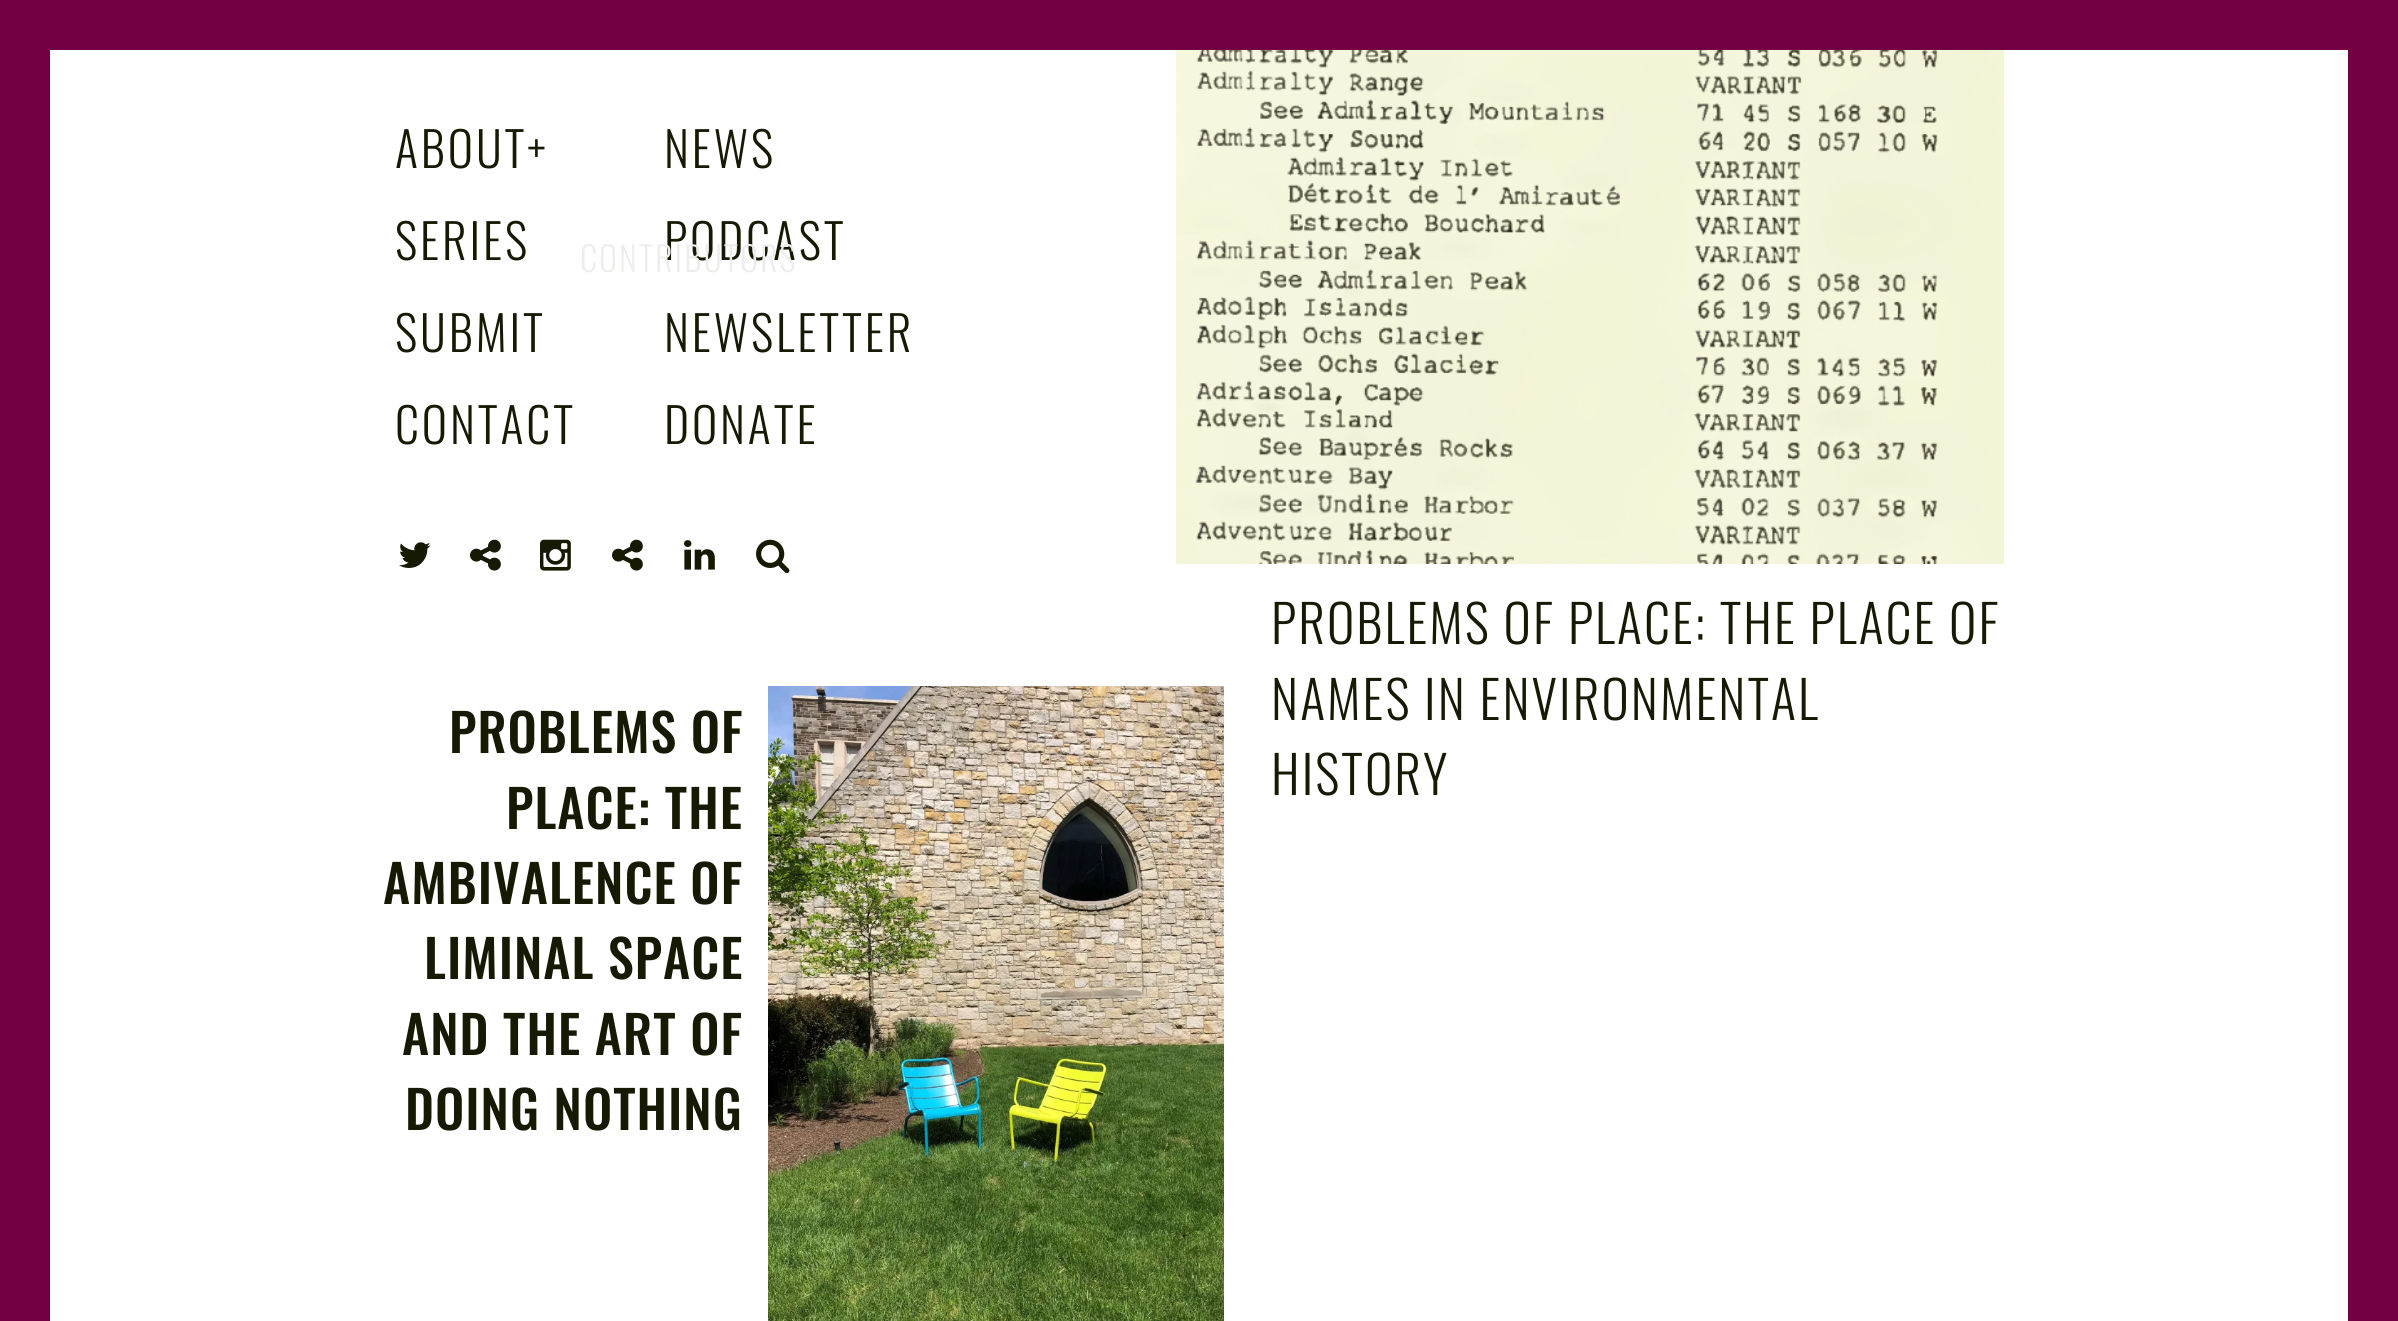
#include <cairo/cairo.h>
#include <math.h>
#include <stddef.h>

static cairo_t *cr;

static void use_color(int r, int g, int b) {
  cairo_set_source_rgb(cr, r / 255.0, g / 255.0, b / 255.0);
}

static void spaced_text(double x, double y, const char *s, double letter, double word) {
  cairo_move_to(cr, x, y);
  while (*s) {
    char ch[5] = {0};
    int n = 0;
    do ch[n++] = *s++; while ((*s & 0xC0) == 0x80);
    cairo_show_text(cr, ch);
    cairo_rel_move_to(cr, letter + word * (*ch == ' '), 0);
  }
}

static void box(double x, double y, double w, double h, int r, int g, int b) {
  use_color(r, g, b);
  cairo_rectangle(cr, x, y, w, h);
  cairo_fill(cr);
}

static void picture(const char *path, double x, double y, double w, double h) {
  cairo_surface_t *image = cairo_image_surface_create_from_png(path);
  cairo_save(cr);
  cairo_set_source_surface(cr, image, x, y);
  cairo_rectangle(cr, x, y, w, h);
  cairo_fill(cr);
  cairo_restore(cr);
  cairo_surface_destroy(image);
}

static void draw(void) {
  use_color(255, 255, 255);
  cairo_paint(cr);
  box(2348, 50, 50, 1271, 114, 0, 66);
  box(0, 50, 50, 1271, 114, 0, 66);
  box(0, 0, 2398, 50, 114, 0, 66);
  picture("img_01.png", 399, 542, 32, 26);
  picture("img_02.png", 470, 539, 31, 32);
  picture("img_03.png", 540, 539, 31, 32);
  picture("img_02.png", 612, 539, 31, 32);
  picture("img_04.png", 684, 540, 31, 30);
  picture("img_05.png", 756, 539, 34, 35);
  picture("img_06.png", 768, 686, 456, 635);
  picture("img_07.png", 1176, 50, 828, 514);
  cairo_select_font_face(cr, "Oswald Light", CAIRO_FONT_SLANT_NORMAL, CAIRO_FONT_WEIGHT_NORMAL);
  cairo_set_font_size(cr, 48);
  use_color(22, 26, 3);
  spaced_text(395, 168, "ABOUT+", 2.9, 0);
  spaced_text(664, 168, "NEWS", 2.9, 0);
  spaced_text(395, 260, "SERIES", 2.9, 0);
  spaced_text(664, 260, "PODCAST", 2.9, 0);
  cairo_set_font_size(cr, 34.25);
  use_color(237, 238, 236);
  spaced_text(580, 272, "CONTRIBUTORS", 2, 0);
  cairo_set_font_size(cr, 48);
  use_color(22, 26, 3);
  spaced_text(395, 352, "SUBMIT", 2.9, 0);
  spaced_text(664, 352, "NEWSLETTER", 2.9, 0);
  spaced_text(395, 444, "CONTACT", 2.9, 0);
  spaced_text(664, 444, "DONATE", 2.9, 0);
  cairo_select_font_face(cr, "Oswald Medium", CAIRO_FONT_SLANT_NORMAL, CAIRO_FONT_WEIGHT_NORMAL);
  cairo_set_font_size(cr, 52);
  spaced_text(449, 753, "PROBLEMS OF", 1, 0);
  spaced_text(506, 829, "PLACE: THE", 1, 0);
  spaced_text(383, 904, "AMBIVALENCE OF", 1, 0);
  spaced_text(424, 979, "LIMINAL SPACE", 1, 0);
  spaced_text(402, 1055, "AND THE ART OF", 1, 0);
  spaced_text(405, 1130, "DOING NOTHING", 1, 0);
  cairo_select_font_face(cr, "Oswald Light", CAIRO_FONT_SLANT_NORMAL, CAIRO_FONT_WEIGHT_NORMAL);
  spaced_text(1271, 644, "PROBLEMS OF PLACE: THE PLACE OF", 2.1, 0);
  spaced_text(1271, 720, "NAMES IN ENVIRONMENTAL", 2.1, 0);
  spaced_text(1271, 795, "HISTORY", 2.1, 0);
}

int main(void) {
  cairo_surface_t *surface = cairo_image_surface_create(CAIRO_FORMAT_RGB24, 2398, 1321);
  cr = cairo_create(surface);
  cairo_font_options_t *options = cairo_font_options_create();
  cairo_font_options_set_hint_metrics(options, CAIRO_HINT_METRICS_OFF);
  cairo_font_options_set_hint_style(options, CAIRO_HINT_STYLE_NONE);
  cairo_set_font_options(cr, options);
  cairo_set_miter_limit(cr, 4);
  draw();
  cairo_surface_write_to_png(surface, "out.png");
  cairo_font_options_destroy(options);
  cairo_destroy(cr);
  cairo_surface_destroy(surface);
  return 0;
}
